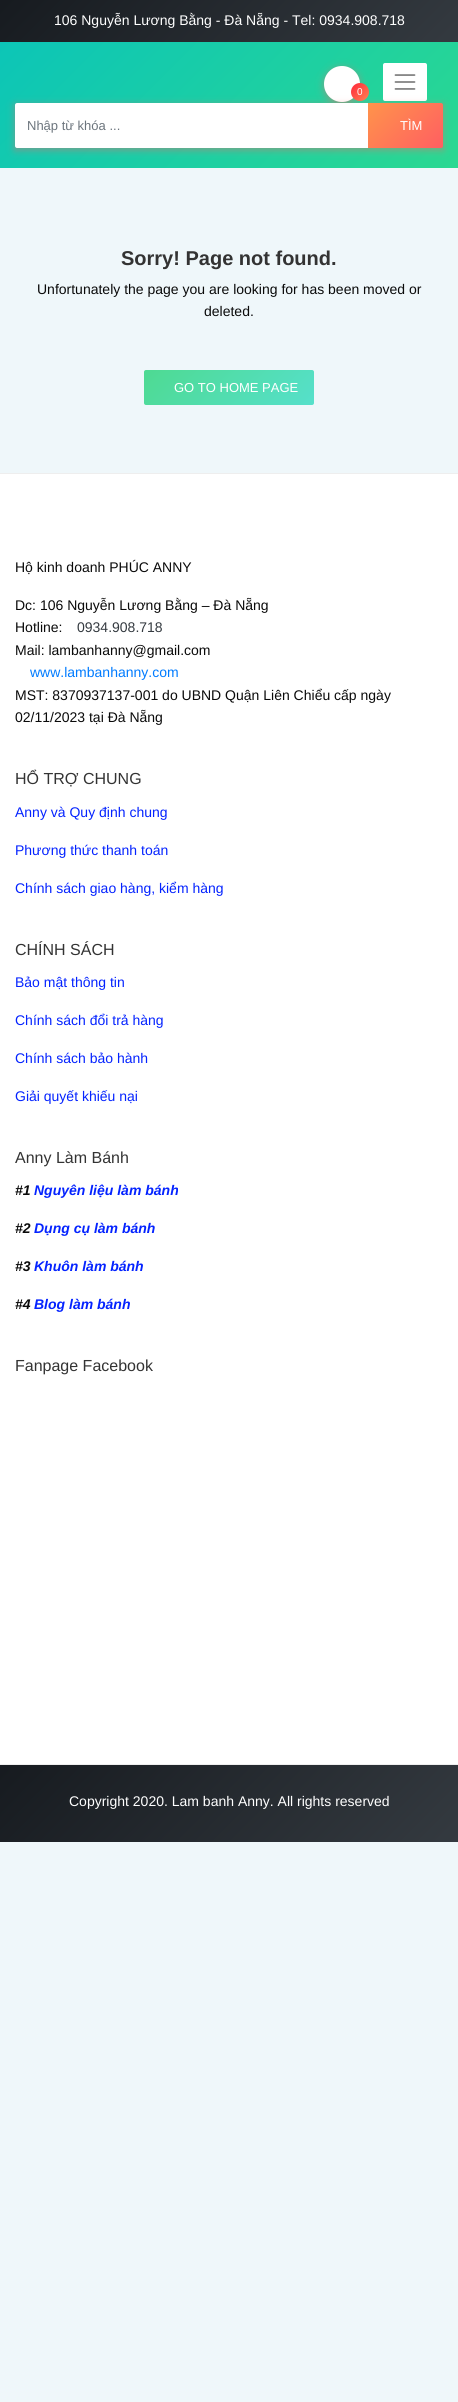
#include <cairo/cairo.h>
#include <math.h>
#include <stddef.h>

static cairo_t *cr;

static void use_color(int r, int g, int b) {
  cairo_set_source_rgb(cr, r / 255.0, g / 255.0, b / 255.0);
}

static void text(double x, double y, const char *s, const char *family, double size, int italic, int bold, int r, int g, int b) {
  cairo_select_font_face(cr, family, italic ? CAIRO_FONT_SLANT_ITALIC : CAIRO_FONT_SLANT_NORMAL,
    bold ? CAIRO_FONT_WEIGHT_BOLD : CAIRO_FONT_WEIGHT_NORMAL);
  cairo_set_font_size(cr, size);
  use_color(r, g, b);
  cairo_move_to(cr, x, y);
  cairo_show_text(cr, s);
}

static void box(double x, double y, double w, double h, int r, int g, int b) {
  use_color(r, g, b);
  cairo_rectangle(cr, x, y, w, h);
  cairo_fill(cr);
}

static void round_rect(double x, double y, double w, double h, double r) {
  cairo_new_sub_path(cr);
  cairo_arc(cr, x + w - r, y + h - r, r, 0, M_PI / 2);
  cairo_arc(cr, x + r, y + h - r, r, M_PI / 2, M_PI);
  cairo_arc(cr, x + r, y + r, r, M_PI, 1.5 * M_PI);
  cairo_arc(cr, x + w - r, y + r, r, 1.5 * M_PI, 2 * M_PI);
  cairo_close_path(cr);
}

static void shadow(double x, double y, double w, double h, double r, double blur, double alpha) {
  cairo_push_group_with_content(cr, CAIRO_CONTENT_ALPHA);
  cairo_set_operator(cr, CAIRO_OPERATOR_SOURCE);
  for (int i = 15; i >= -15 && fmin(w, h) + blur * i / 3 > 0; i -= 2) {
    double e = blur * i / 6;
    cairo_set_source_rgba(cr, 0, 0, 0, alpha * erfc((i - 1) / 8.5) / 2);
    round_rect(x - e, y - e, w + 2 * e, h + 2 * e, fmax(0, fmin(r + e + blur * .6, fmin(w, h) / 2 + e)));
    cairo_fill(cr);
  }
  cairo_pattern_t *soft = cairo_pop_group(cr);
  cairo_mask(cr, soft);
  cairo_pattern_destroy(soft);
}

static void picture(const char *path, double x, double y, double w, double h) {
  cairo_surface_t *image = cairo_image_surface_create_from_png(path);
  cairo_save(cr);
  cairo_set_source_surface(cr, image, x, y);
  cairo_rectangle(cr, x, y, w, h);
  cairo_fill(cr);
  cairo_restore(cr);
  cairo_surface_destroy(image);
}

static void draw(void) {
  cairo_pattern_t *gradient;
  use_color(239, 247, 250);
  cairo_paint(cr);
  gradient = cairo_pattern_create_linear(104, -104, 354, 146);
  cairo_pattern_add_color_stop_rgba(gradient, 0.01, 0.09, 0.106, 0.125, 1);
  cairo_pattern_add_color_stop_rgba(gradient, 1, 0.204, 0.227, 0.251, 1);
  cairo_set_source(cr, gradient);
  cairo_pattern_destroy(gradient);
  cairo_rectangle(cr, 0, 0, 458, 42);
  cairo_fill(cr);
  gradient = cairo_pattern_create_linear(83, -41, 375, 251);
  cairo_pattern_add_color_stop_rgba(gradient, 0, 0.047, 0.773, 0.718, 1);
  cairo_pattern_add_color_stop_rgba(gradient, 1, 0.169, 0.847, 0.569, 1);
  cairo_set_source(cr, gradient);
  cairo_pattern_destroy(gradient);
  cairo_rectangle(cr, 0, 42, 458, 126);
  cairo_fill(cr);
  use_color(255, 97, 98);
  shadow(324, 68, 36, 36, 18, 4, 0.46);
  use_color(255, 255, 255);
  cairo_arc(cr, 342, 84, 18, 0, 2 * M_PI);
  cairo_fill(cr);
  gradient = cairo_pattern_create_linear(351, 83, 369, 101);
  cairo_pattern_add_color_stop_rgba(gradient, 0, 1, 0.145, 0.227, 1);
  cairo_pattern_add_color_stop_rgba(gradient, 1, 1, 0.518, 0.325, 1);
  cairo_set_source(cr, gradient);
  cairo_pattern_destroy(gradient);
  cairo_arc(cr, 360, 92, 9, 0, 2 * M_PI);
  cairo_fill(cr);
  use_color(255, 255, 255);
  round_rect(383, 63, 44, 38, 2);
  cairo_fill(cr);
  picture("img_01.png", 394, 74, 22, 16);
  use_color(255, 97, 98);
  shadow(15, 105, 428, 45, 0, 4, 0.46);
  use_color(255, 255, 255);
  cairo_new_path(cr);
  cairo_move_to(cr, 17, 103);
  cairo_line_to(cr, 368, 103);
  cairo_line_to(cr, 368, 148);
  cairo_line_to(cr, 17, 148);
  cairo_curve_to(cr, 16, 148, 15, 147, 15, 146);
  cairo_line_to(cr, 15, 105);
  cairo_curve_to(cr, 15, 104, 16, 103, 17, 103);
  cairo_close_path(cr);
  cairo_fill(cr);
  gradient = cairo_pattern_create_linear(376, 96, 436, 156);
  cairo_pattern_add_color_stop_rgba(gradient, 0, 1, 0.576, 0.294, 1);
  cairo_pattern_add_color_stop_rgba(gradient, 1, 1, 0.369, 0.384, 1);
  cairo_set_source(cr, gradient);
  cairo_pattern_destroy(gradient);
  cairo_new_path(cr);
  cairo_move_to(cr, 368, 103);
  cairo_line_to(cr, 441, 103);
  cairo_curve_to(cr, 442, 103, 443, 104, 443, 105);
  cairo_line_to(cr, 443, 146);
  cairo_curve_to(cr, 443, 147, 442, 148, 441, 148);
  cairo_line_to(cr, 368, 148);
  cairo_close_path(cr);
  cairo_fill(cr);
  gradient = cairo_pattern_create_linear(178, 336, 280, 439);
  cairo_pattern_add_color_stop_rgba(gradient, 0.01, 0.306, 0.855, 0.573, 1);
  cairo_pattern_add_color_stop_rgba(gradient, 1, 0.337, 0.878, 0.796, 1);
  cairo_set_source(cr, gradient);
  cairo_pattern_destroy(gradient);
  round_rect(144, 370, 170, 35, 2);
  cairo_fill(cr);
  box(0, 474, 458, 1290, 255, 255, 255);
  box(0, 473, 458, 1, 238, 238, 238);
  box(0, 1764, 458, 1, 238, 238, 238);
  gradient = cairo_pattern_create_linear(95, 1670, 363, 1937);
  cairo_pattern_add_color_stop_rgba(gradient, 0.01, 0.09, 0.106, 0.125, 1);
  cairo_pattern_add_color_stop_rgba(gradient, 1, 0.204, 0.227, 0.251, 1);
  cairo_set_source(cr, gradient);
  cairo_pattern_destroy(gradient);
  cairo_rectangle(cr, 0, 1765, 458, 77);
  cairo_fill(cr);
  text(54, 25, "106 Nguyễn Lương Bằng - Đà Nẵng - Tel: 0934.908.718", "Liberation Sans", 14, 0, 0, 255, 255, 255);
  text(357, 95, "0", "Liberation Sans", 10, 0, 0, 255, 255, 255);
  text(27, 130, "Nhập từ khóa ...", "Liberation Sans", 13, 0, 0, 108, 117, 125);
  text(400, 130, "TÌM", "Liberation Sans", 13, 0, 0, 255, 255, 255);
  text(121, 265, "Sorry! Page not found.", "Liberation Sans", 20, 0, 1, 51, 51, 51);
  text(37, 294, "Unfortunately the page you are looking for has been moved or", "Liberation Sans", 14, 0, 0, 10, 10, 10);
  text(204, 316, "deleted.", "Liberation Sans", 14, 0, 0, 10, 10, 10);
  text(174, 392, "GO TO HOME PAGE", "Liberation Sans", 13, 0, 0, 255, 255, 255);
  text(15, 572, "Hộ kinh doanh PHÚC ANNY", "Liberation Sans", 14, 0, 0, 10, 10, 10);
  text(15, 610, "Dc: 106 Nguyễn Lương Bằng – Đà Nẵng", "Liberation Sans", 14, 0, 0, 10, 10, 10);
  text(15, 632, "Hotline:", "Liberation Sans", 14, 0, 0, 10, 10, 10);
  text(77, 632, "0934.908.718", "Liberation Sans", 14, 0, 0, 52, 58, 64);
  text(15, 655, "Mail: lambanhanny@gmail.com", "Liberation Sans", 14, 0, 0, 10, 10, 10);
  text(30, 677, "www.lambanhanny.com", "Liberation Sans", 14, 0, 0, 0, 123, 255);
  text(15, 700, "MST: 8370937137-001 do UBND Quận Liên Chiểu cấp ngày", "Liberation Sans", 14, 0, 0, 10, 10, 10);
  text(15, 722, "02/11/2023 tại Đà Nẵng", "Liberation Sans", 14, 0, 0, 10, 10, 10);
  text(15, 784, "HỔ TRỢ CHUNG", "Liberation Sans", 16, 0, 0, 51, 51, 51);
  text(15, 817, "Anny và Quy định chung", "Liberation Sans", 14, 0, 0, 4, 35, 255);
  text(15, 855, "Phương thức thanh toán", "Liberation Sans", 14, 0, 0, 4, 35, 255);
  text(15, 893, "Chính sách giao hàng, kiểm hàng", "Liberation Sans", 14, 0, 0, 4, 35, 255);
  text(15, 955, "CHÍNH SÁCH", "Liberation Sans", 16, 0, 0, 51, 51, 51);
  text(15, 987, "Bảo mật thông tin", "Liberation Sans", 14, 0, 0, 4, 35, 255);
  text(15, 1025, "Chính sách đổi trả hàng", "Liberation Sans", 14, 0, 0, 4, 35, 255);
  text(15, 1063, "Chính sách bảo hành", "Liberation Sans", 14, 0, 0, 4, 35, 255);
  text(15, 1101, "Giải quyết khiếu nại", "Liberation Sans", 14, 0, 0, 4, 35, 255);
  text(15, 1163, "Anny Làm Bánh", "Liberation Sans", 16, 0, 0, 51, 51, 51);
  text(15, 1195, "#1", "Liberation Sans", 14, 1, 1, 10, 10, 10);
  text(34, 1195, "Nguyên liệu làm bánh", "Liberation Sans", 14, 1, 1, 4, 35, 255);
  text(15, 1233, "#2", "Liberation Sans", 14, 1, 1, 10, 10, 10);
  text(34, 1233, "Dụng cụ làm bánh", "Liberation Sans", 14, 1, 1, 4, 35, 255);
  text(15, 1271, "#3", "Liberation Sans", 14, 1, 1, 10, 10, 10);
  text(34, 1271, "Khuôn làm bánh", "Liberation Sans", 14, 1, 1, 4, 35, 255);
  text(15, 1309, "#4", "Liberation Sans", 14, 1, 1, 10, 10, 10);
  text(34, 1309, "Blog làm bánh", "Liberation Sans", 14, 1, 1, 4, 35, 255);
  text(15, 1371, "Fanpage Facebook", "Liberation Sans", 16, 0, 0, 51, 51, 51);
  text(69, 1806, "Copyright 2020. Lam banh Anny. All rights reserved", "Liberation Sans", 14, 0, 0, 255, 255, 255);
}

int main(void) {
  cairo_surface_t *surface = cairo_image_surface_create(CAIRO_FORMAT_RGB24, 458, 2402);
  cr = cairo_create(surface);
  cairo_font_options_t *options = cairo_font_options_create();
  cairo_font_options_set_hint_metrics(options, CAIRO_HINT_METRICS_OFF);
  cairo_font_options_set_hint_style(options, CAIRO_HINT_STYLE_NONE);
  cairo_set_font_options(cr, options);
  cairo_set_miter_limit(cr, 4);
  draw();
  cairo_surface_write_to_png(surface, "out.png");
  cairo_font_options_destroy(options);
  cairo_destroy(cr);
  cairo_surface_destroy(surface);
  return 0;
}
